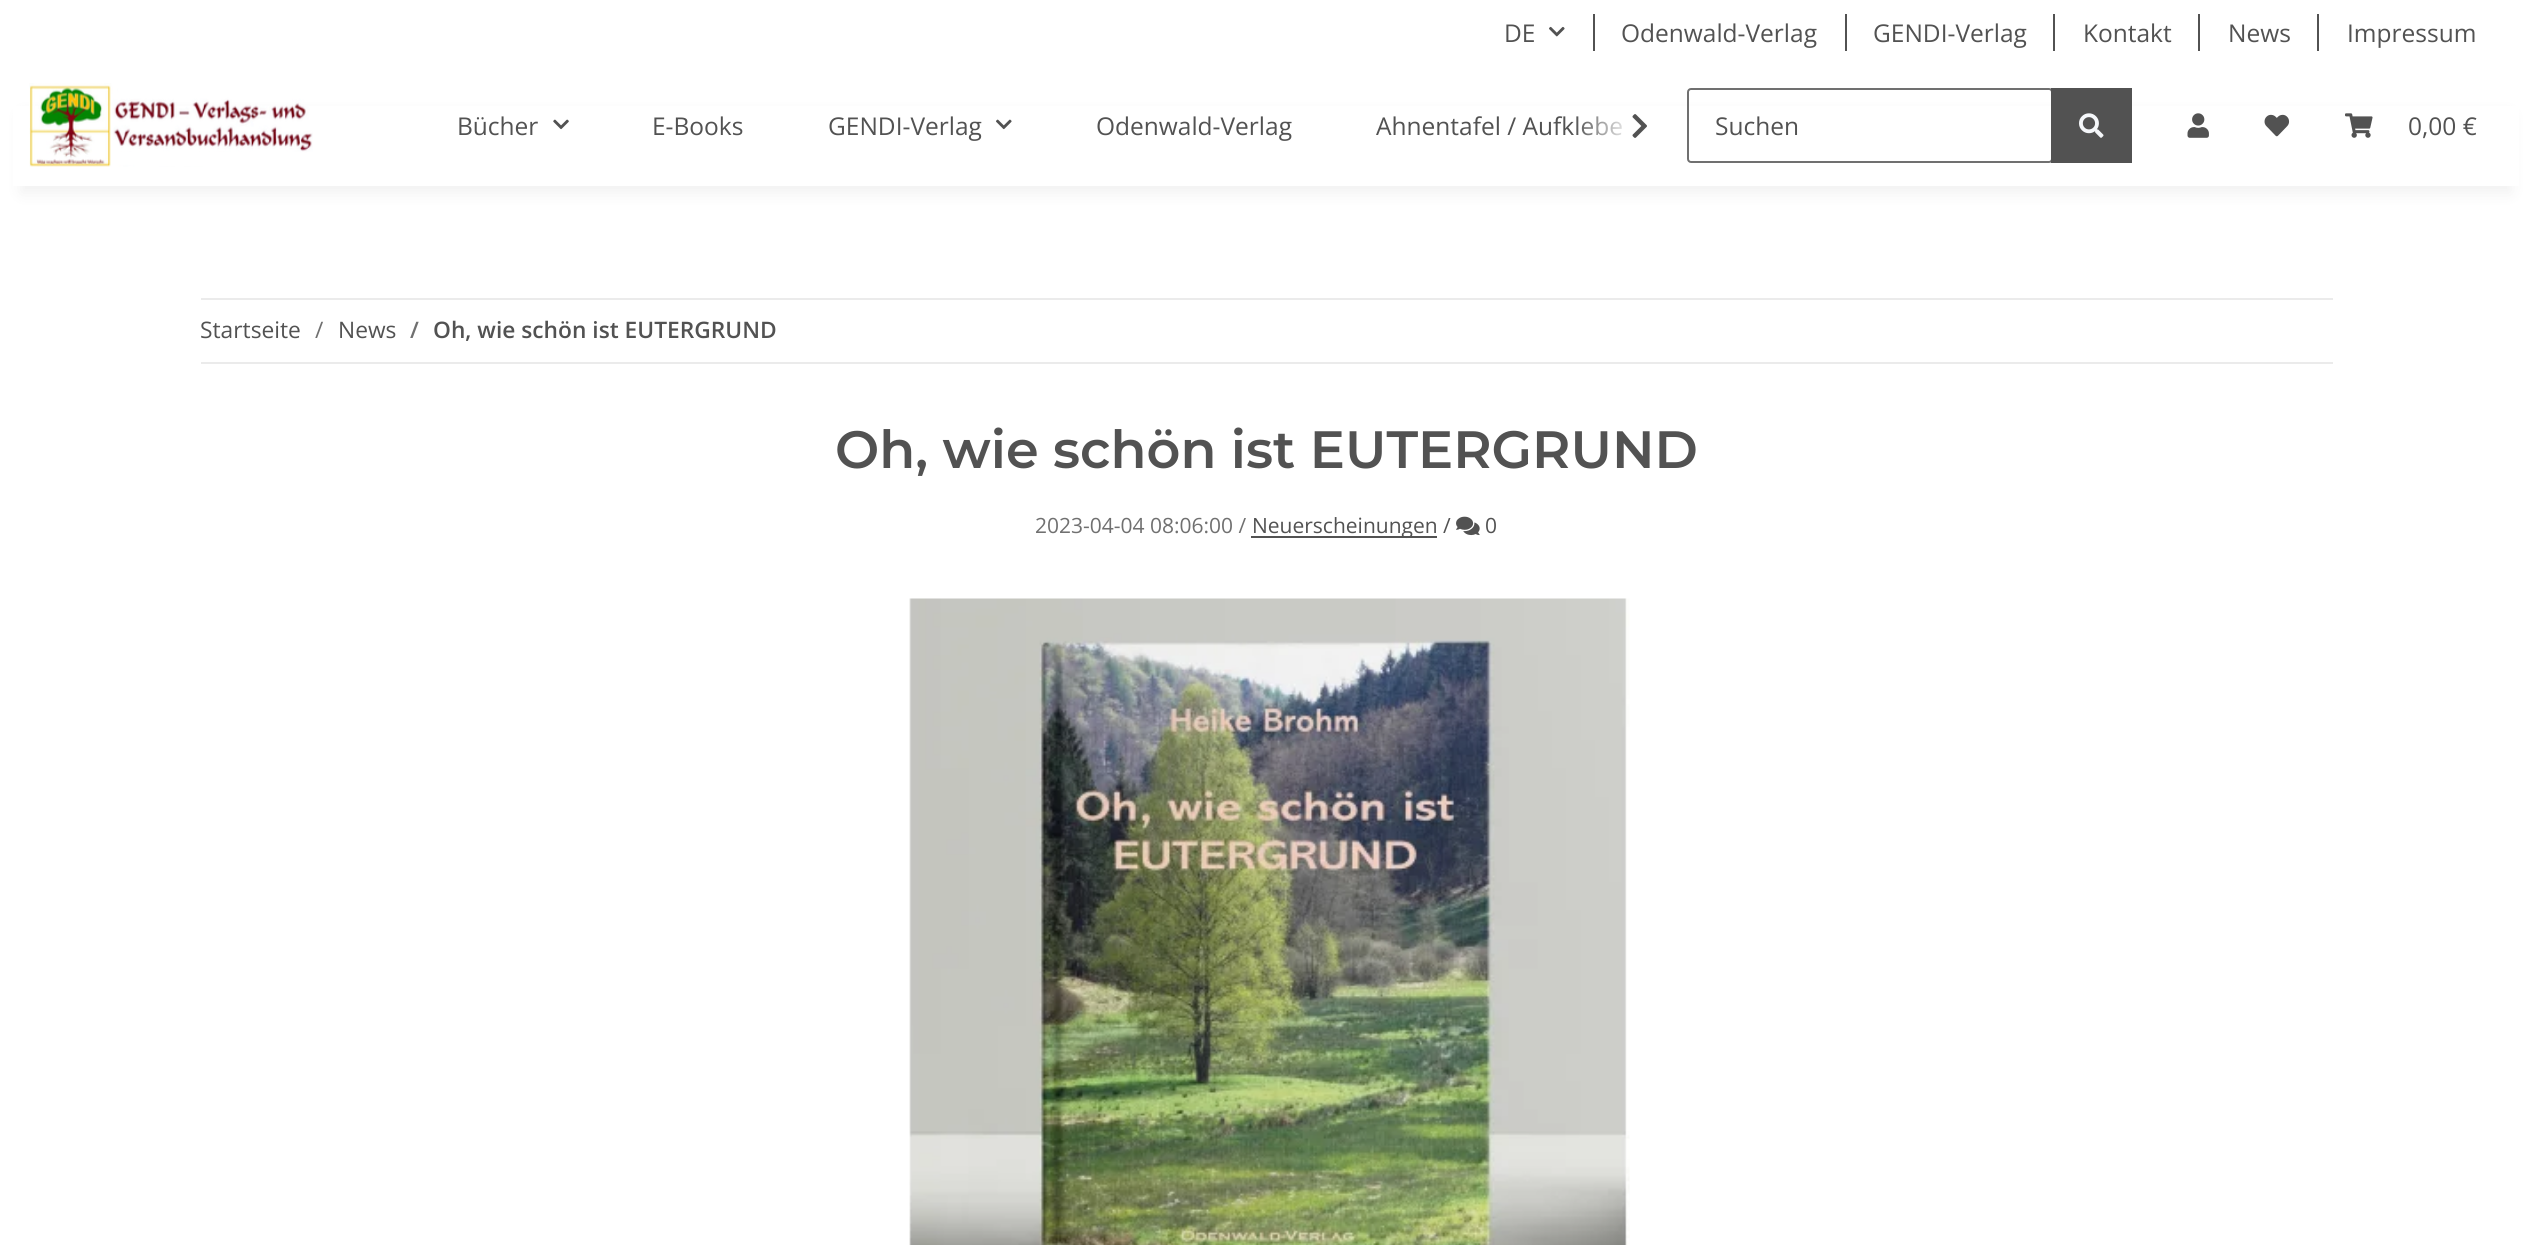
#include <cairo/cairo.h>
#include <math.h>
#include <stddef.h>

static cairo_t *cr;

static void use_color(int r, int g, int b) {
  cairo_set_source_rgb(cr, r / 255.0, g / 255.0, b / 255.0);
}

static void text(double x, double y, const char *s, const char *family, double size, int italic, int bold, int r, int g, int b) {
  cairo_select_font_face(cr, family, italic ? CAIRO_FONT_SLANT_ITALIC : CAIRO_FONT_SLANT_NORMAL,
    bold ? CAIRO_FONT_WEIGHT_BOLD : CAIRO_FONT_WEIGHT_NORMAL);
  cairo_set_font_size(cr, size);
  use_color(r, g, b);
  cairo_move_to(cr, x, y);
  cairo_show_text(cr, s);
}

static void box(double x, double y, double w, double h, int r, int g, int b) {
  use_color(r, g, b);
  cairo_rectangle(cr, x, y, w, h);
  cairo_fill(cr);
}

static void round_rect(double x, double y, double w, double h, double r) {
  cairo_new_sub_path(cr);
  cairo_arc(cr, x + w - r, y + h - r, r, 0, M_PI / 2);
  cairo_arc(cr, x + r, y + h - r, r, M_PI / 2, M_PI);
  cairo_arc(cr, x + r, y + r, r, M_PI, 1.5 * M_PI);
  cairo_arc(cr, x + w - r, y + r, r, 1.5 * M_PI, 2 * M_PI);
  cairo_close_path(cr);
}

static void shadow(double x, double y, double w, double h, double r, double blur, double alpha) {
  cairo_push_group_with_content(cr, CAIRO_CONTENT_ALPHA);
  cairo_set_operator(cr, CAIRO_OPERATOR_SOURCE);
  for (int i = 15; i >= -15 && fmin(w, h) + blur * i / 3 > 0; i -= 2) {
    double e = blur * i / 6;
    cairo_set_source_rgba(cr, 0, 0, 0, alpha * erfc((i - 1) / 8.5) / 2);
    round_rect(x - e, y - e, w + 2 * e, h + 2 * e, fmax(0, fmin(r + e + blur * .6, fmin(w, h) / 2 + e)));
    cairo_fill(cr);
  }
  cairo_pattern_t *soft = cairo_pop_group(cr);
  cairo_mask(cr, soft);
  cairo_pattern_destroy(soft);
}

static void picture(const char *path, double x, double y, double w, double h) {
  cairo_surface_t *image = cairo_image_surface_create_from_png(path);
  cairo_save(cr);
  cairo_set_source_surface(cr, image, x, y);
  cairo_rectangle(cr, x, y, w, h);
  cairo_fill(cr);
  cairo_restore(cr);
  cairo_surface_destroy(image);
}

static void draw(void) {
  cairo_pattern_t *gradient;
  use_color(255, 255, 255);
  cairo_paint(cr);
  picture("img_01.png", 1549, 26, 16, 11);
  box(1593, 14, 2, 37, 82, 82, 82);
  box(1845, 14, 2, 37, 82, 82, 82);
  box(2053, 14, 2, 37, 82, 82, 82);
  box(2198, 14, 2, 37, 82, 82, 82);
  box(2317, 14, 2, 37, 82, 82, 82);
  use_color(0, 0, 0);
  shadow(21, 114, 2490, 79, 0, 8, 0.06);
  box(13, 106, 2506, 80, 255, 255, 255);
  picture("img_02.png", 29, 83, 284, 84);
  picture("img_03.png", 1632, 114, 15, 24);
  picture("img_04.png", 553, 119, 16, 11);
  picture("img_05.png", 996, 119, 16, 11);
  round_rect(1688, 89, 364, 73, 3);
  use_color(112, 112, 112);
  cairo_stroke(cr);
  box(2051, 88, 81, 75, 82, 82, 82);
  picture("img_06.png", 2079, 113, 25, 25);
  picture("img_07.png", 2187, 113, 22, 25);
  picture("img_08.png", 2264, 114, 26, 23);
  picture("img_09.png", 2345, 113, 28, 25);
  box(201, 298, 2132, 2, 235, 235, 235);
  box(201, 362, 2132, 2, 235, 235, 235);
  box(1251, 536, 186, 2, 82, 82, 82);
  picture("img_10.png", 1456, 516, 24, 20);
  picture("img_11.png", 909, 598, 721, 647);
  text(1504, 42, "DE", "Open Sans", 24.5, 0, 0, 82, 82, 82);
  text(1621, 42, "Odenwald-Verlag", "Open Sans", 24.5, 0, 0, 82, 82, 82);
  text(1873, 42, "GENDI-Verlag", "Open Sans", 24.5, 0, 0, 82, 82, 82);
  text(2083, 42, "Kontakt", "Open Sans", 24.5, 0, 0, 82, 82, 82);
  text(2228, 42, "News", "Open Sans", 24.5, 0, 0, 82, 82, 82);
  text(2347, 42, "Impressum", "Open Sans", 24.5, 0, 0, 82, 82, 82);
  text(457, 135, "Bücher", "Open Sans", 24.5, 0, 0, 82, 82, 82);
  text(652, 135, "E-Books", "Open Sans", 24.5, 0, 0, 82, 82, 82);
  text(828, 135, "GENDI-Verlag", "Open Sans", 24.5, 0, 0, 82, 82, 82);
  text(1096, 135, "Odenwald-Verlag", "Open Sans", 24.5, 0, 0, 82, 82, 82);
  text(1376, 135, "Ahnentafel / Aufklebe", "Open Sans", 24.5, 0, 0, 82, 82, 82);
  gradient = cairo_pattern_create_linear(1575, 126, 1659, 126);
  cairo_pattern_add_color_stop_rgba(gradient, 0, 1, 1, 1, 0.01);
  cairo_pattern_add_color_stop_rgba(gradient, 0.7, 1, 1, 1, 1);
  cairo_set_source(cr, gradient);
  cairo_pattern_destroy(gradient);
  cairo_rectangle(cr, 1576, 116, 46, 20);
  cairo_fill(cr);
  text(1715, 135, "Suchen", "Open Sans", 24.5, 0, 0, 82, 82, 82);
  text(2408, 135, "0,00 €", "Open Sans", 24.5, 0, 0, 82, 82, 82);
  text(200, 338, "Startseite", "Open Sans", 22.75, 0, 0, 82, 82, 82);
  text(315, 338, "/", "Open Sans", 22.75, 0, 0, 112, 112, 112);
  text(338, 338, "News", "Open Sans", 22.75, 0, 0, 82, 82, 82);
  text(410, 338, "/", "Open Sans SemiBold", 22.75, 0, 0, 112, 112, 112);
  text(433, 338, "Oh, wie schön ist EUTERGRUND", "Open Sans SemiBold", 22.75, 0, 0, 82, 82, 82);
  text(835, 468, "Oh, wie schön ist EUTERGRUND", "Montserrat SemiBold", 52.5, 0, 0, 82, 82, 82);
  text(1035, 533, "2023-04-04 08:06:00 /", "Open Sans", 21, 0, 0, 112, 112, 112);
  text(1252, 533, "Neuerscheinungen /", "Open Sans", 21, 0, 0, 82, 82, 82);
  text(1485, 533, "0", "Open Sans", 21, 0, 0, 82, 82, 82);
}

int main(void) {
  cairo_surface_t *surface = cairo_image_surface_create(CAIRO_FORMAT_RGB24, 2531, 1245);
  cr = cairo_create(surface);
  cairo_font_options_t *options = cairo_font_options_create();
  cairo_font_options_set_hint_metrics(options, CAIRO_HINT_METRICS_OFF);
  cairo_font_options_set_hint_style(options, CAIRO_HINT_STYLE_NONE);
  cairo_set_font_options(cr, options);
  cairo_set_miter_limit(cr, 4);
  draw();
  cairo_surface_write_to_png(surface, "out.png");
  cairo_font_options_destroy(options);
  cairo_destroy(cr);
  cairo_surface_destroy(surface);
  return 0;
}
